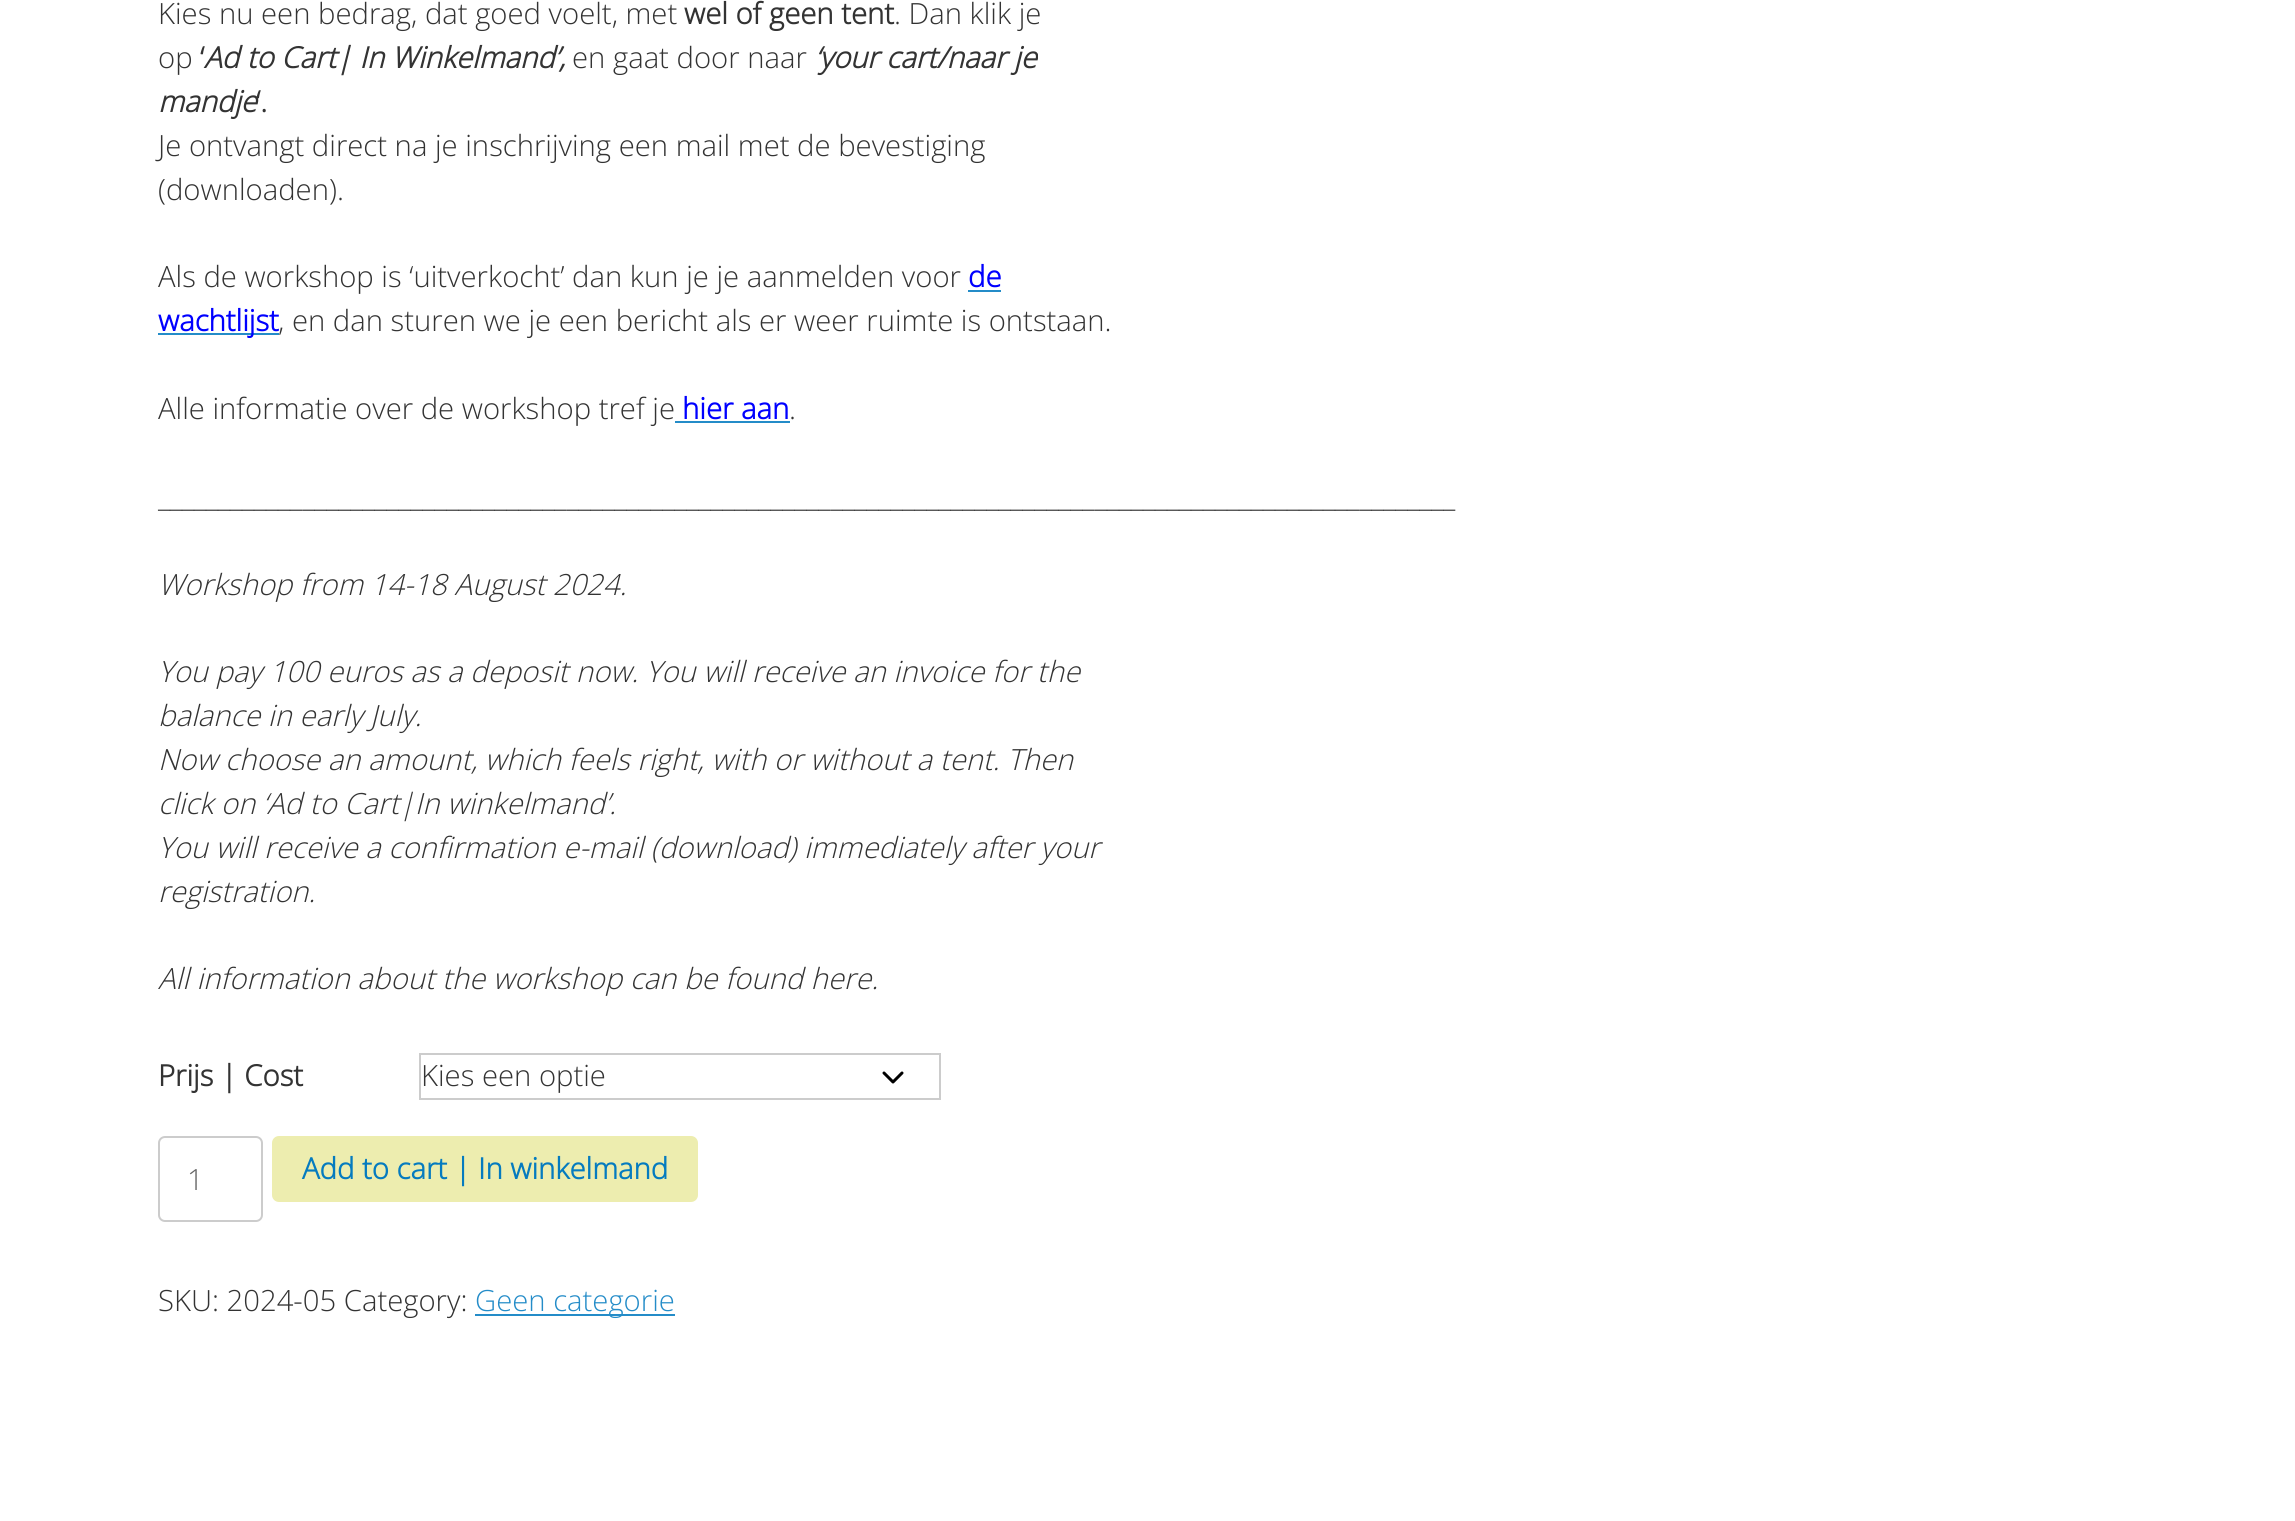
#include <cairo/cairo.h>
#include <math.h>
#include <stddef.h>

static cairo_t *cr;

static void use_color(int r, int g, int b) {
  cairo_set_source_rgb(cr, r / 255.0, g / 255.0, b / 255.0);
}

static void text(double x, double y, const char *s, const char *family, double size, int italic, int bold, int r, int g, int b) {
  cairo_select_font_face(cr, family, italic ? CAIRO_FONT_SLANT_ITALIC : CAIRO_FONT_SLANT_NORMAL,
    bold ? CAIRO_FONT_WEIGHT_BOLD : CAIRO_FONT_WEIGHT_NORMAL);
  cairo_set_font_size(cr, size);
  use_color(r, g, b);
  cairo_move_to(cr, x, y);
  cairo_show_text(cr, s);
}

static void box(double x, double y, double w, double h, int r, int g, int b) {
  use_color(r, g, b);
  cairo_rectangle(cr, x, y, w, h);
  cairo_fill(cr);
}

static void round_rect(double x, double y, double w, double h, double r) {
  cairo_new_sub_path(cr);
  cairo_arc(cr, x + w - r, y + h - r, r, 0, M_PI / 2);
  cairo_arc(cr, x + r, y + h - r, r, M_PI / 2, M_PI);
  cairo_arc(cr, x + r, y + r, r, M_PI, 1.5 * M_PI);
  cairo_arc(cr, x + w - r, y + r, r, 1.5 * M_PI, 2 * M_PI);
  cairo_close_path(cr);
}

static void draw(void) {
  use_color(255, 255, 255);
  cairo_paint(cr);
  box(968, 290, 33, 2, 36, 140, 200);
  box(158, 333, 121, 2, 36, 140, 200);
  box(675, 421, 115, 2, 36, 140, 200);
  cairo_new_path(cr);
  cairo_move_to(cr, 884, 1073);
  cairo_line_to(cr, 893, 1082);
  cairo_line_to(cr, 902, 1073);
  use_color(0, 0, 0);
  cairo_set_line_width(cr, 3);
  cairo_set_line_cap(cr, CAIRO_LINE_CAP_ROUND);
  cairo_set_line_join(cr, CAIRO_LINE_JOIN_ROUND);
  cairo_stroke(cr);
  cairo_rectangle(cr, 420, 1054, 520, 45);
  use_color(204, 204, 204);
  cairo_set_line_width(cr, 2);
  cairo_set_line_cap(cr, CAIRO_LINE_CAP_BUTT);
  cairo_set_line_join(cr, CAIRO_LINE_JOIN_MITER);
  cairo_stroke(cr);
  round_rect(159, 1137, 103, 84, 6);
  cairo_stroke(cr);
  use_color(237, 237, 175);
  round_rect(272, 1136, 426, 66, 7);
  cairo_fill(cr);
  box(475, 1314, 200, 2, 36, 140, 200);
  text(158, 24, "Kies nu een bedrag, dat goed voelt, met", "Open Sans Light", 29.25, 0, 0, 51, 51, 51);
  text(684, 24, "wel of geen tent", "Open Sans", 29.25, 0, 1, 51, 51, 51);
  text(894, 24, ". Dan klik je", "Open Sans Light", 29.25, 0, 0, 51, 51, 51);
  text(200, 68, "‘", "Open Sans", 29.25, 0, 1, 51, 51, 51);
  text(204, 68, "Ad to Cart| In Winkelmand’,", "Open Sans", 29.25, 1, 1, 51, 51, 51);
  text(572, 68, "en gaat door naar", "Open Sans Light", 29.25, 0, 0, 51, 51, 51);
  text(815, 68, "‘your cart/naar je", "Open Sans", 29.25, 1, 1, 51, 51, 51);
  text(158, 68, "op", "Open Sans Light", 29.25, 0, 0, 51, 51, 51);
  text(158, 112, "mandje", "Open Sans", 29.25, 1, 1, 51, 51, 51);
  text(256, 112, "‘.", "Open Sans", 29.25, 0, 1, 51, 51, 51);
  text(158, 156, "Je ontvangt direct na je inschrijving een mail met de bevestiging", "Open Sans Light", 29.25, 0, 0, 51, 51, 51);
  text(158, 200, "(downloaden).", "Open Sans Light", 29.25, 0, 0, 51, 51, 51);
  text(158, 287, "Als de workshop is ‘uitverkocht’ dan kun je je aanmelden voor", "Open Sans Light", 29.25, 0, 0, 51, 51, 51);
  text(968, 287, "de", "Open Sans", 29.25, 0, 1, 0, 0, 255);
  text(158, 331, "wachtlijst", "Open Sans", 29.25, 0, 1, 0, 0, 255);
  text(278, 331, ", en dan sturen we je een bericht als er weer ruimte is ontstaan.", "Open Sans Light", 29.25, 0, 0, 51, 51, 51);
  text(158, 419, "Alle informatie over de workshop tref je", "Open Sans Light", 29.25, 0, 0, 51, 51, 51);
  text(682, 419, "hier aan", "Open Sans", 29.25, 0, 1, 0, 0, 255);
  text(789, 419, ".", "Open Sans Light", 29.25, 0, 0, 51, 51, 51);
  text(158, 507, "____________________________________________________________________________________________________________", "Open Sans Light", 29.25, 0, 0, 51, 51, 51);
  text(158, 595, "Workshop from 14-18 August 2024.", "Open Sans Light", 29.25, 1, 0, 51, 51, 51);
  text(158, 682, "You pay 100 euros as a deposit now. You will receive an invoice for the", "Open Sans Light", 29.25, 1, 0, 51, 51, 51);
  text(158, 726, "balance in early July.", "Open Sans Light", 29.25, 1, 0, 51, 51, 51);
  text(158, 770, "Now choose an amount, which feels right, with or without a tent. Then", "Open Sans Light", 29.25, 1, 0, 51, 51, 51);
  text(158, 814, "click on ‘Ad to Cart|In winkelmand’.", "Open Sans Light", 29.25, 1, 0, 51, 51, 51);
  text(158, 858, "You will receive a confirmation e-mail (download) immediately after your", "Open Sans Light", 29.25, 1, 0, 51, 51, 51);
  text(158, 902, "registration.", "Open Sans Light", 29.25, 1, 0, 51, 51, 51);
  text(158, 989, "All information about the workshop can be found here.", "Open Sans Light", 29.25, 1, 0, 51, 51, 51);
  text(158, 1086, "Prijs | Cost", "Open Sans", 29.25, 0, 1, 51, 51, 51);
  text(421, 1086, "Kies een optie", "Open Sans Light", 29.25, 0, 0, 51, 51, 51);
  text(187, 1190, "1", "Open Sans Light", 29.25, 0, 0, 102, 102, 102);
  text(302, 1179, "Add to cart | In winkelmand", "Open Sans", 29.25, 0, 1, 5, 123, 191);
  text(158, 1311, "SKU: 2024-05 Category:", "Open Sans Light", 29.25, 0, 0, 51, 51, 51);
  text(475, 1311, "Geen categorie", "Open Sans Light", 29.25, 0, 0, 36, 140, 200);
}

int main(void) {
  cairo_surface_t *surface = cairo_image_surface_create(CAIRO_FORMAT_RGB24, 2295, 1521);
  cr = cairo_create(surface);
  cairo_font_options_t *options = cairo_font_options_create();
  cairo_font_options_set_hint_metrics(options, CAIRO_HINT_METRICS_OFF);
  cairo_font_options_set_hint_style(options, CAIRO_HINT_STYLE_NONE);
  cairo_set_font_options(cr, options);
  cairo_set_miter_limit(cr, 4);
  draw();
  cairo_surface_write_to_png(surface, "out.png");
  cairo_font_options_destroy(options);
  cairo_destroy(cr);
  cairo_surface_destroy(surface);
  return 0;
}
